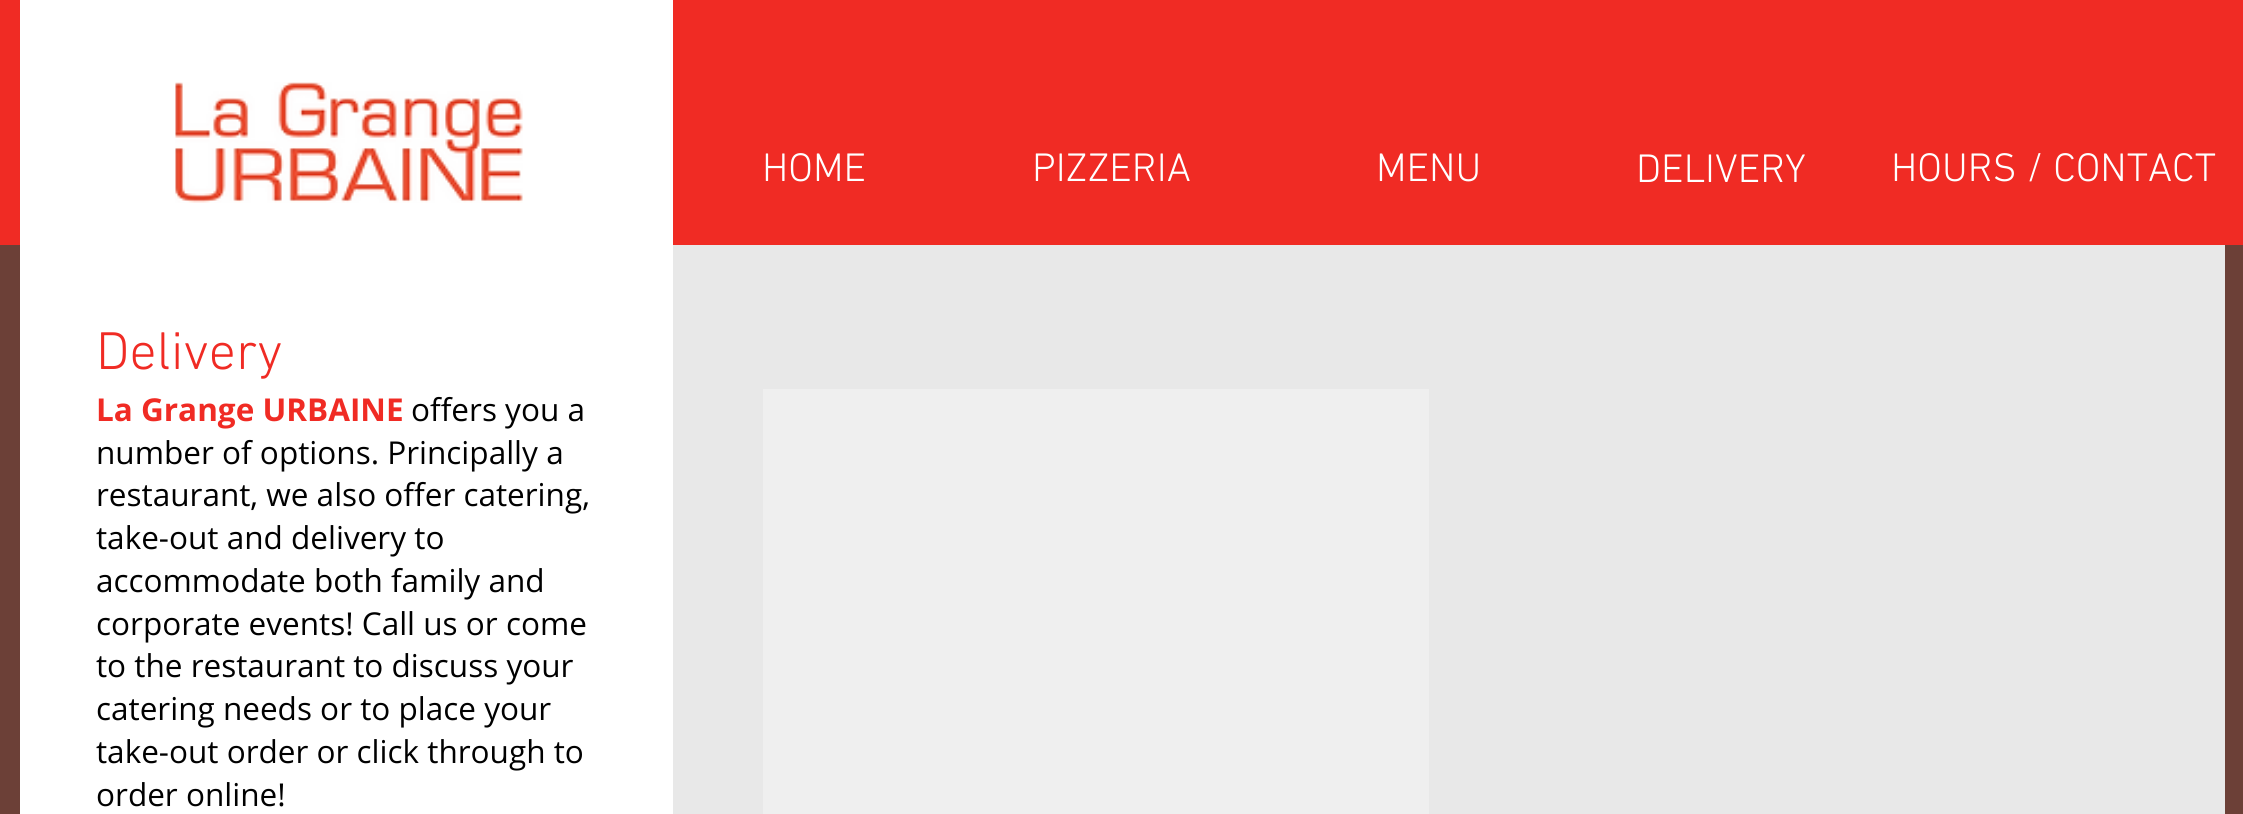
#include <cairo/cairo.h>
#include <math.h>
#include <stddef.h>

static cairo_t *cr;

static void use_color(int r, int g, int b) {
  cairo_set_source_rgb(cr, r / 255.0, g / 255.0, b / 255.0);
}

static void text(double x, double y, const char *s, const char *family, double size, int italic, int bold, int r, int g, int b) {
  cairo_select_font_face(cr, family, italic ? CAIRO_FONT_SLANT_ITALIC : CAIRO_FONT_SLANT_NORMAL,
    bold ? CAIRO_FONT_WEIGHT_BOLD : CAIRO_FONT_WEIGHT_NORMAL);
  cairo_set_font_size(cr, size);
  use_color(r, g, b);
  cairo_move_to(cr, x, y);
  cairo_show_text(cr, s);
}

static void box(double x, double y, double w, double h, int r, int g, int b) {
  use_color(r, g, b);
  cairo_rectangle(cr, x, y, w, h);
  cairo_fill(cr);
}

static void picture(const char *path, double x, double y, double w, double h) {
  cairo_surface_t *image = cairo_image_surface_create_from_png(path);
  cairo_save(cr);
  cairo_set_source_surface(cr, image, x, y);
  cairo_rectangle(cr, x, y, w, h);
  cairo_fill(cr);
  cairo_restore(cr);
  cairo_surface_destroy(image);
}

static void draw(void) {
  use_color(108, 64, 55);
  cairo_paint(cr);
  box(0, 0, 2243, 245, 240, 43, 36);
  box(20, 0, 653, 814, 255, 255, 255);
  picture("img_01.png", 175, 82, 348, 121);
  box(673, 245, 1552, 569, 232, 232, 232);
  box(763, 389, 666, 425, 239, 239, 239);
  text(762, 181, "HOME", "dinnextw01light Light", 40.5, 0, 0, 255, 255, 255);
  text(1032, 181, "PIZZERIA", "dinnextw01light Light", 40.5, 0, 0, 255, 255, 255);
  text(1376, 181, "MENU", "dinnextw01light Light", 40.5, 0, 0, 255, 255, 255);
  text(1636, 182, "DELIVERY", "dinnextw01light Light", 40.5, 0, 0, 255, 255, 255);
  text(1891, 181, "HOURS / CONTACT", "dinnextw01light Light", 40.5, 0, 0, 255, 255, 255);
  text(96, 369, "Delivery", "dinnextw01light Light", 54, 0, 0, 240, 43, 36);
  text(96, 421, "La Grange URBAINE", "Open Sans", 31.5, 0, 1, 240, 43, 36);
  text(411, 421, "offers you a", "Open Sans", 31.5, 0, 0, 0, 0, 0);
  text(96, 464, "number of options. Principally a", "Open Sans", 31.5, 0, 0, 0, 0, 0);
  text(96, 506, "restaurant, we also offer catering,", "Open Sans", 31.5, 0, 0, 0, 0, 0);
  text(96, 549, "take-out and delivery to", "Open Sans", 31.5, 0, 0, 0, 0, 0);
  text(96, 592, "accommodate both family and", "Open Sans", 31.5, 0, 0, 0, 0, 0);
  text(96, 635, "corporate events! Call us or come", "Open Sans", 31.5, 0, 0, 0, 0, 0);
  text(96, 677, "to the restaurant to discuss your", "Open Sans", 31.5, 0, 0, 0, 0, 0);
  text(96, 720, "catering needs or to place your", "Open Sans", 31.5, 0, 0, 0, 0, 0);
  text(96, 763, "take-out order or click through to", "Open Sans", 31.5, 0, 0, 0, 0, 0);
  text(96, 806, "order online!", "Open Sans", 31.5, 0, 0, 0, 0, 0);
}

int main(void) {
  cairo_surface_t *surface = cairo_image_surface_create(CAIRO_FORMAT_RGB24, 2243, 814);
  cr = cairo_create(surface);
  cairo_font_options_t *options = cairo_font_options_create();
  cairo_font_options_set_hint_metrics(options, CAIRO_HINT_METRICS_OFF);
  cairo_font_options_set_hint_style(options, CAIRO_HINT_STYLE_NONE);
  cairo_set_font_options(cr, options);
  cairo_set_miter_limit(cr, 4);
  draw();
  cairo_surface_write_to_png(surface, "out.png");
  cairo_font_options_destroy(options);
  cairo_destroy(cr);
  cairo_surface_destroy(surface);
  return 0;
}
